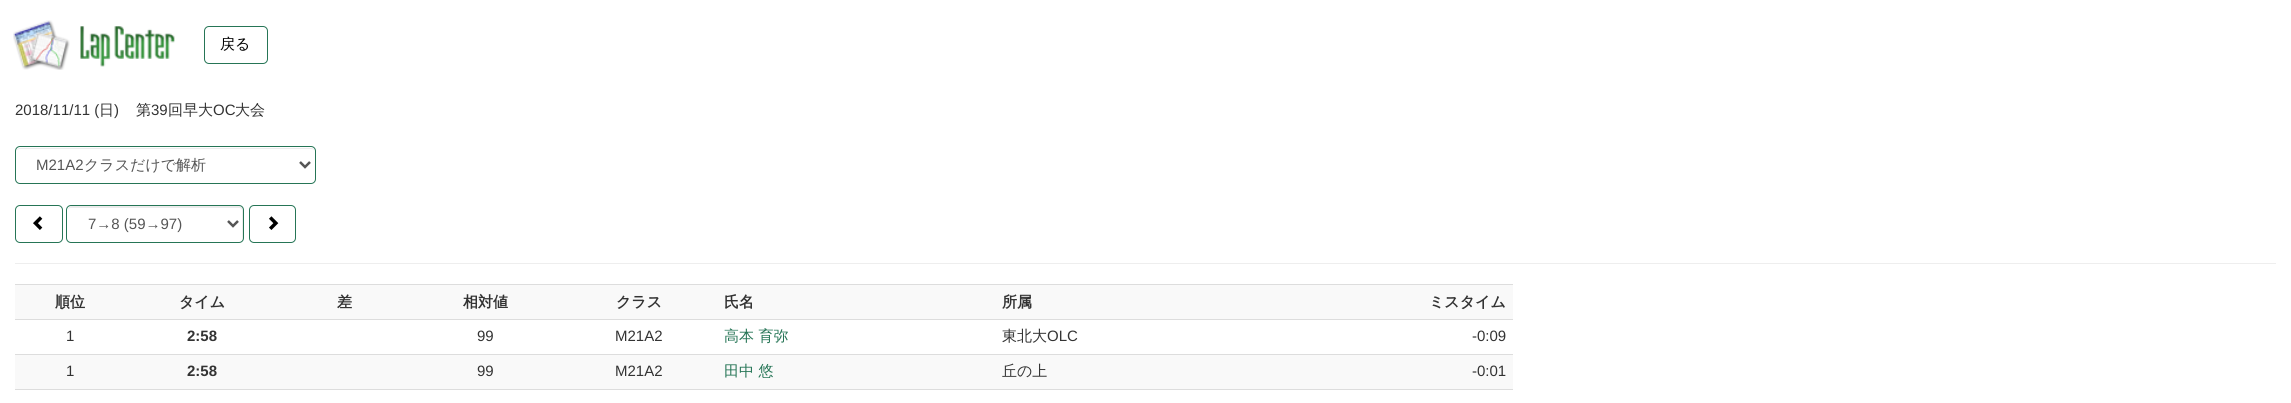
#include <cairo/cairo.h>
#include <math.h>
#include <stddef.h>

static cairo_t *cr;

static void use_color(int r, int g, int b) {
  cairo_set_source_rgb(cr, r / 255.0, g / 255.0, b / 255.0);
}

static void text(double x, double y, const char *s, const char *family, double size, int italic, int bold, int r, int g, int b) {
  cairo_select_font_face(cr, family, italic ? CAIRO_FONT_SLANT_ITALIC : CAIRO_FONT_SLANT_NORMAL,
    bold ? CAIRO_FONT_WEIGHT_BOLD : CAIRO_FONT_WEIGHT_NORMAL);
  cairo_set_font_size(cr, size);
  use_color(r, g, b);
  cairo_move_to(cr, x, y);
  cairo_show_text(cr, s);
}

static void box(double x, double y, double w, double h, int r, int g, int b) {
  use_color(r, g, b);
  cairo_rectangle(cr, x, y, w, h);
  cairo_fill(cr);
}

static void round_rect(double x, double y, double w, double h, double r) {
  cairo_new_sub_path(cr);
  cairo_arc(cr, x + w - r, y + h - r, r, 0, M_PI / 2);
  cairo_arc(cr, x + r, y + h - r, r, M_PI / 2, M_PI);
  cairo_arc(cr, x + r, y + r, r, M_PI, 1.5 * M_PI);
  cairo_arc(cr, x + w - r, y + r, r, 1.5 * M_PI, 2 * M_PI);
  cairo_close_path(cr);
}

static void picture(const char *path, double x, double y, double w, double h) {
  cairo_surface_t *image = cairo_image_surface_create_from_png(path);
  cairo_save(cr);
  cairo_set_source_surface(cr, image, x, y);
  cairo_rectangle(cr, x, y, w, h);
  cairo_fill(cr);
  cairo_restore(cr);
  cairo_surface_destroy(image);
}

static void draw(void) {
  use_color(255, 255, 255);
  cairo_paint(cr);
  picture("img_01.png", 13, 20, 162, 50);
  round_rect(204.5, 26.5, 63, 37, 4.5);
  use_color(38, 117, 86);
  cairo_set_line_width(cr, 1);
  cairo_stroke(cr);
  use_color(236, 236, 236);
  cairo_new_path(cr);
  cairo_move_to(cr, 20, 149);
  cairo_line_to(cr, 311, 149);
  cairo_curve_to(cr, 313, 149, 315, 150, 315, 152);
  cairo_curve_to(cr, 315, 150, 313, 148, 311, 148);
  cairo_line_to(cr, 20, 148);
  cairo_curve_to(cr, 18, 148, 16, 150, 16, 152);
  cairo_curve_to(cr, 16, 150, 18, 149, 20, 149);
  cairo_close_path(cr);
  cairo_fill(cr);
  round_rect(15.5, 146.5, 300, 37, 4.5);
  use_color(38, 117, 86);
  cairo_stroke(cr);
  cairo_new_path(cr);
  cairo_move_to(cr, 300, 162);
  cairo_line_to(cr, 305, 167);
  cairo_line_to(cr, 310, 162);
  use_color(85, 85, 85);
  cairo_set_line_width(cr, 2.5);
  cairo_stroke(cr);
  round_rect(15.5, 205.5, 47, 37, 4.5);
  use_color(38, 117, 86);
  cairo_set_line_width(cr, 1);
  cairo_stroke(cr);
  picture("img_02.png", 33, 216, 10, 14);
  use_color(236, 236, 236);
  cairo_new_path(cr);
  cairo_move_to(cr, 71, 208);
  cairo_line_to(cr, 239, 208);
  cairo_curve_to(cr, 241, 208, 242, 209, 242, 211);
  cairo_line_to(cr, 242, 240);
  cairo_curve_to(cr, 243, 239, 243, 238, 243, 237);
  cairo_line_to(cr, 243, 210);
  cairo_curve_to(cr, 243, 208, 241, 206, 239, 206);
  cairo_line_to(cr, 72, 206);
  cairo_curve_to(cr, 70, 206, 68, 208, 68, 210);
  cairo_line_to(cr, 68, 211);
  cairo_curve_to(cr, 68, 209, 69, 208, 71, 208);
  cairo_close_path(cr);
  cairo_fill(cr);
  round_rect(66.5, 205.5, 177, 37, 4.5);
  use_color(38, 117, 86);
  cairo_stroke(cr);
  cairo_new_path(cr);
  cairo_move_to(cr, 228, 221);
  cairo_line_to(cr, 233, 226);
  cairo_line_to(cr, 238, 221);
  use_color(85, 85, 85);
  cairo_set_line_width(cr, 2.5);
  cairo_stroke(cr);
  round_rect(249.5, 205.5, 46, 37, 4.5);
  use_color(38, 117, 86);
  cairo_set_line_width(cr, 1);
  cairo_stroke(cr);
  picture("img_03.png", 269, 216, 10, 14);
  box(15, 263, 2261, 1, 238, 238, 238);
  box(15, 285, 1498, 34, 249, 249, 249);
  box(15, 284, 1498, 1, 221, 221, 221);
  box(15, 319, 1498, 1, 221, 221, 221);
  box(15, 355, 1498, 34, 249, 249, 249);
  box(15, 354, 1498, 1, 221, 221, 221);
  box(15, 389, 1498, 1, 221, 221, 221);
  text(220, 49, "戻る", "WenQuanYi Zen Hei Medium", 15, 0, 0, 0, 0, 0);
  text(15, 115, "2018/11/11 (", "Liberation Sans", 15, 0, 0, 51, 51, 51);
  text(99, 115, "日", "WenQuanYi Zen Hei Medium", 15, 0, 0, 51, 51, 51);
  text(114, 115, ")", "Liberation Sans", 15, 0, 0, 51, 51, 51);
  text(136, 115, "第", "WenQuanYi Zen Hei Medium", 15, 0, 0, 51, 51, 51);
  text(151, 115, "39", "Liberation Sans", 15, 0, 0, 51, 51, 51);
  text(168, 115, "回早大", "WenQuanYi Zen Hei Medium", 15, 0, 0, 51, 51, 51);
  text(213, 115, "OC", "Liberation Sans", 15, 0, 0, 51, 51, 51);
  text(235, 115, "大会", "WenQuanYi Zen Hei Medium", 15, 0, 0, 51, 51, 51);
  text(36, 170, "M21A2", "Liberation Sans", 15, 0, 0, 85, 85, 85);
  text(84, 170, "クラスだけで解析", "WenQuanYi Zen Hei Medium", 15, 0, 0, 85, 85, 85);
  text(88, 229, "7→8 (59→97)", "Liberation Sans", 15, 0, 0, 85, 85, 85);
  text(55, 307, "順位", "WenQuanYi Zen Hei", 15, 0, 1, 51, 51, 51);
  text(179, 307, "タイム", "WenQuanYi Zen Hei", 15, 0, 1, 51, 51, 51);
  text(337, 307, "差", "WenQuanYi Zen Hei", 15, 0, 1, 51, 51, 51);
  text(463, 307, "相対値", "WenQuanYi Zen Hei", 15, 0, 1, 51, 51, 51);
  text(616, 307, "クラス", "WenQuanYi Zen Hei", 15, 0, 1, 51, 51, 51);
  text(724, 307, "氏名", "WenQuanYi Zen Hei", 15, 0, 1, 51, 51, 51);
  text(1002, 307, "所属", "WenQuanYi Zen Hei", 15, 0, 1, 51, 51, 51);
  text(1429, 307, "ミスタイム", "WenQuanYi Zen Hei", 15, 0, 1, 51, 51, 51);
  text(66, 341, "1", "Liberation Sans", 15, 0, 0, 51, 51, 51);
  text(187, 341, "2:58", "Liberation Sans", 15, 0, 1, 51, 51, 51);
  text(477, 341, "99", "Liberation Sans", 15, 0, 0, 51, 51, 51);
  text(615, 341, "M21A2", "Liberation Sans", 15, 0, 0, 51, 51, 51);
  text(724, 341, "高本 育弥", "WenQuanYi Zen Hei Medium", 15, 0, 0, 38, 117, 86);
  text(1002, 341, "東北大", "WenQuanYi Zen Hei Medium", 15, 0, 0, 51, 51, 51);
  text(1047, 341, "OLC", "Liberation Sans", 15, 0, 0, 51, 51, 51);
  text(1472, 341, "-0:09", "Liberation Sans", 15, 0, 0, 51, 51, 51);
  text(66, 376, "1", "Liberation Sans", 15, 0, 0, 51, 51, 51);
  text(187, 376, "2:58", "Liberation Sans", 15, 0, 1, 51, 51, 51);
  text(477, 376, "99", "Liberation Sans", 15, 0, 0, 51, 51, 51);
  text(615, 376, "M21A2", "Liberation Sans", 15, 0, 0, 51, 51, 51);
  text(724, 376, "田中 悠", "WenQuanYi Zen Hei Medium", 15, 0, 0, 38, 117, 86);
  text(1002, 376, "丘の上", "WenQuanYi Zen Hei Medium", 15, 0, 0, 51, 51, 51);
  text(1472, 376, "-0:01", "Liberation Sans", 15, 0, 0, 51, 51, 51);
}

int main(void) {
  cairo_surface_t *surface = cairo_image_surface_create(CAIRO_FORMAT_RGB24, 2291, 403);
  cr = cairo_create(surface);
  cairo_font_options_t *options = cairo_font_options_create();
  cairo_font_options_set_hint_metrics(options, CAIRO_HINT_METRICS_OFF);
  cairo_font_options_set_hint_style(options, CAIRO_HINT_STYLE_NONE);
  cairo_set_font_options(cr, options);
  cairo_set_miter_limit(cr, 4);
  draw();
  cairo_surface_write_to_png(surface, "out.png");
  cairo_font_options_destroy(options);
  cairo_destroy(cr);
  cairo_surface_destroy(surface);
  return 0;
}
